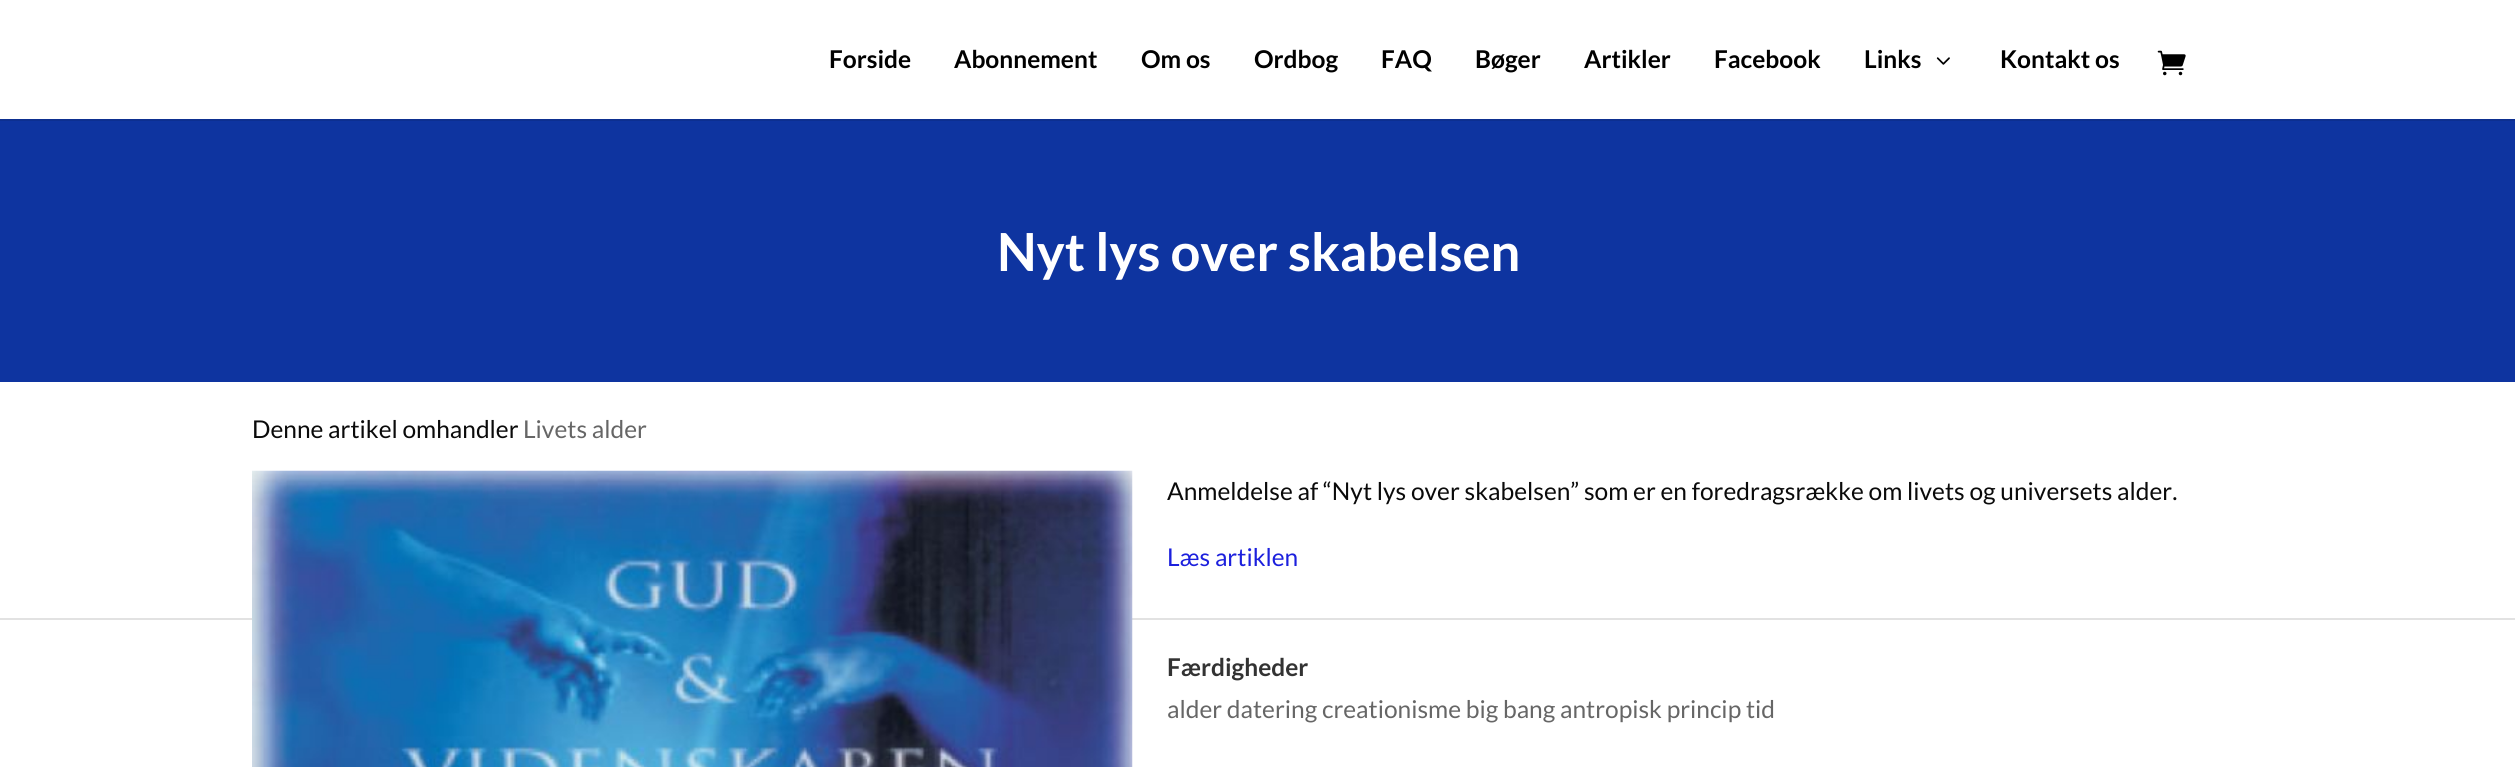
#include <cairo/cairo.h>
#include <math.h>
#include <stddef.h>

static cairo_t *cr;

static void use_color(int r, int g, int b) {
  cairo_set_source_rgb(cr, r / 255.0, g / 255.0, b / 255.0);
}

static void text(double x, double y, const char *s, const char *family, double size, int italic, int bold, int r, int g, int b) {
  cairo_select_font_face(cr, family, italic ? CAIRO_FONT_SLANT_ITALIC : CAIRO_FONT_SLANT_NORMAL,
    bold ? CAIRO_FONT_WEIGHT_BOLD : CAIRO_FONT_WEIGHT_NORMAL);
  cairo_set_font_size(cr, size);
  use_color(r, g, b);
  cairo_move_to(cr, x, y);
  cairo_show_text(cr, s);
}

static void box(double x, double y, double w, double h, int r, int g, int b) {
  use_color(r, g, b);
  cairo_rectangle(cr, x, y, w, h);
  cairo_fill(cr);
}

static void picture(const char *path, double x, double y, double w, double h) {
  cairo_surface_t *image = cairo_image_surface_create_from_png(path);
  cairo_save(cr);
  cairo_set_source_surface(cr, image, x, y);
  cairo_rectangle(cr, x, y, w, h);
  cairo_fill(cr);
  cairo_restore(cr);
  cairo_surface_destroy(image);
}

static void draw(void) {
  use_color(255, 255, 255);
  cairo_paint(cr);
  use_color(13, 47, 144);
  cairo_new_path(cr);
  cairo_move_to(cr, 0, 119);
  cairo_line_to(cr, 0, 121);
  cairo_line_to(cr, 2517, 121);
  cairo_line_to(cr, 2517, 2);
  cairo_line_to(cr, 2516, 2);
  cairo_line_to(cr, 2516, 119);
  cairo_close_path(cr);
  cairo_fill(cr);
  picture("img_01.png", 1936, 57, 14, 8);
  picture("img_02.png", 2157, 50, 29, 26);
  box(0, 121, 2515, 261, 14, 52, 160);
  box(0, 618, 2515, 2, 226, 226, 226);
  picture("img_03.png", 252, 470, 881, 297);
  text(829, 68, "Forside", "Lato", 24.5, 0, 1, 0, 0, 0);
  text(954, 68, "Abonnement", "Lato", 24.5, 0, 1, 0, 0, 0);
  text(1141, 68, "Om os", "Lato", 24.5, 0, 1, 0, 0, 0);
  text(1254, 68, "Ordbog", "Lato", 24.5, 0, 1, 0, 0, 0);
  text(1381, 68, "FAQ", "Lato", 24.5, 0, 1, 0, 0, 0);
  text(1475, 68, "Bøger", "Lato", 24.5, 0, 1, 0, 0, 0);
  text(1584, 68, "Artikler", "Lato", 24.5, 0, 1, 0, 0, 0);
  text(1714, 68, "Facebook", "Lato", 24.5, 0, 1, 0, 0, 0);
  text(1864, 68, "Links", "Lato", 24.5, 0, 1, 0, 0, 0);
  text(2000, 68, "Kontakt os", "Lato", 24.5, 0, 1, 0, 0, 0);
  text(997, 271, "Nyt lys over skabelsen", "Lato", 52.5, 0, 1, 255, 255, 255);
  text(252, 438, "Denne artikel omhandler", "Lato", 24.5, 0, 0, 10, 10, 10);
  text(523, 438, "Livets alder", "Lato", 24.5, 0, 0, 102, 102, 102);
  text(1167, 500, "Anmeldelse af “Nyt lys over skabelsen” som er en foredragsrække om livets og universets alder.", "Lato", 24.5, 0, 0, 10, 10, 10);
  text(1167, 566, "Læs artiklen", "Lato", 24.5, 0, 0, 28, 32, 221);
  text(1167, 676, "Færdigheder", "Lato", 24.5, 0, 1, 51, 51, 51);
  text(1167, 718, "alder datering creationisme big bang antropisk princip tid", "Lato", 24.5, 0, 0, 102, 102, 102);
}

int main(void) {
  cairo_surface_t *surface = cairo_image_surface_create(CAIRO_FORMAT_RGB24, 2515, 767);
  cr = cairo_create(surface);
  cairo_font_options_t *options = cairo_font_options_create();
  cairo_font_options_set_hint_metrics(options, CAIRO_HINT_METRICS_OFF);
  cairo_font_options_set_hint_style(options, CAIRO_HINT_STYLE_NONE);
  cairo_set_font_options(cr, options);
  cairo_set_miter_limit(cr, 4);
  draw();
  cairo_surface_write_to_png(surface, "out.png");
  cairo_font_options_destroy(options);
  cairo_destroy(cr);
  cairo_surface_destroy(surface);
  return 0;
}
